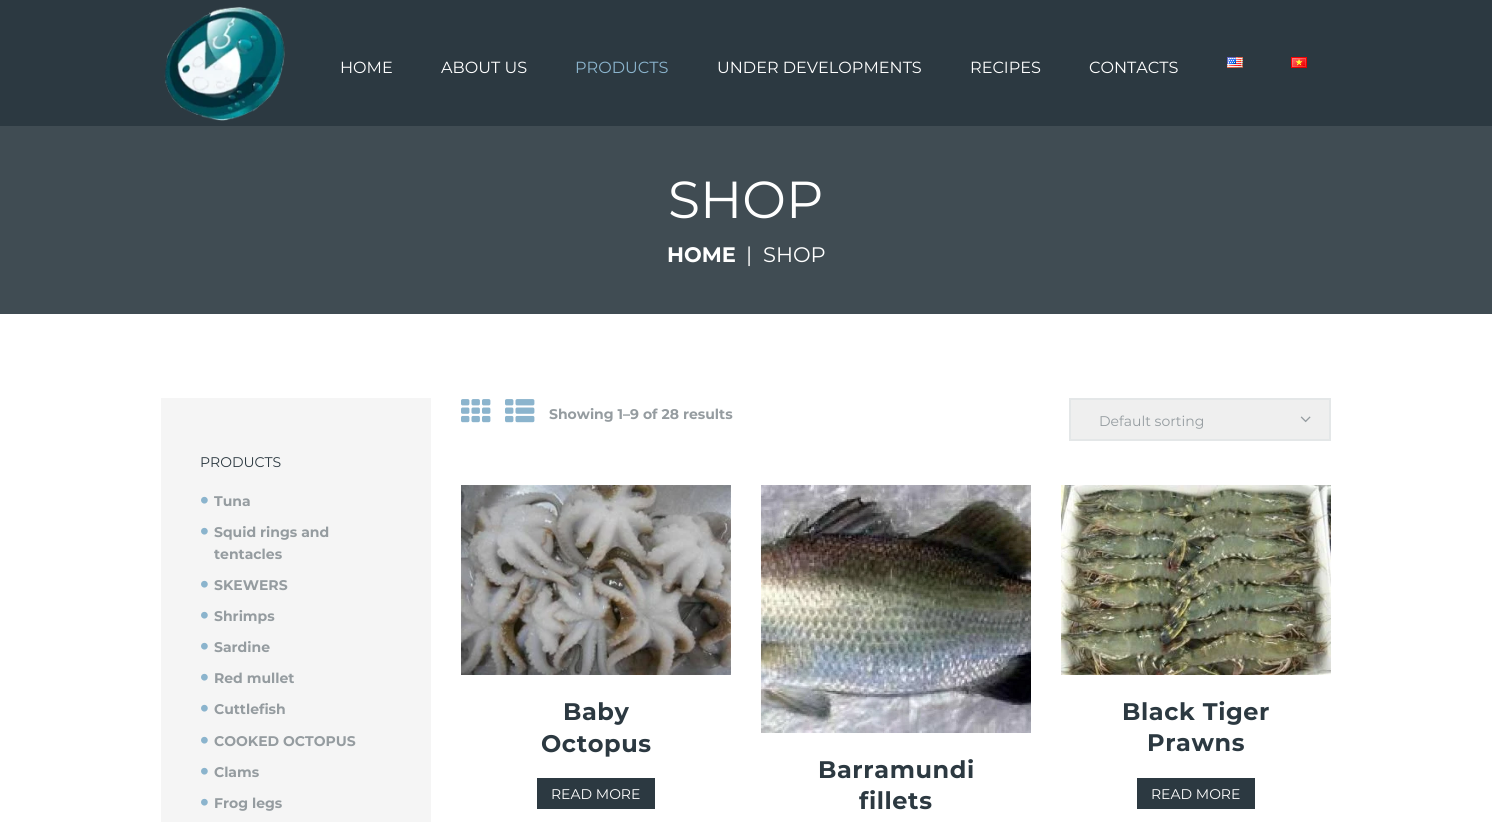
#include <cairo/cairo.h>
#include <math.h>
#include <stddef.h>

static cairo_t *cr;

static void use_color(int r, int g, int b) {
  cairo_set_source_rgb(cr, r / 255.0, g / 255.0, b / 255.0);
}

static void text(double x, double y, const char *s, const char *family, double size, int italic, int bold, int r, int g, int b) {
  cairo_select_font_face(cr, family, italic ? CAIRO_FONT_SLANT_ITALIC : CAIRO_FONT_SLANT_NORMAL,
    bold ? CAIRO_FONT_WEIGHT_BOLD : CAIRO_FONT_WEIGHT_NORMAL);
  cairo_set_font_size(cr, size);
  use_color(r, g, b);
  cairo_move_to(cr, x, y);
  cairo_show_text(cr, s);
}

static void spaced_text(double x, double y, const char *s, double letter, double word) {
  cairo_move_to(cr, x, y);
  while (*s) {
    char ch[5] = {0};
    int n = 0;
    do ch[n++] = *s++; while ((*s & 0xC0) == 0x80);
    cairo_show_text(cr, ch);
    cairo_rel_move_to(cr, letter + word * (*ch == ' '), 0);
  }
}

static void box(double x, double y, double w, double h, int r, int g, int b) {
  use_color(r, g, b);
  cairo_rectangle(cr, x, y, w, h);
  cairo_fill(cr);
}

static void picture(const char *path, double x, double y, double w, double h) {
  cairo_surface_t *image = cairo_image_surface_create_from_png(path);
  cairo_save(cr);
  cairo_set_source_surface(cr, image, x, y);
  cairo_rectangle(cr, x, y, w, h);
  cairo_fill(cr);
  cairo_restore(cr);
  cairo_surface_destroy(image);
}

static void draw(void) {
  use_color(255, 255, 255);
  cairo_paint(cr);
  box(0, 0, 1492, 126, 44, 57, 65);
  picture("img_01.png", 164, 7, 121, 114);
  picture("img_02.png", 1227, 57, 16, 11);
  picture("img_03.png", 1291, 57, 16, 11);
  box(0, 126, 1492, 188, 64, 76, 83);
  box(161, 398, 270, 424, 245, 245, 245);
  picture("img_04.png", 201, 496, 7, 8);
  picture("img_04.png", 201, 527, 7, 8);
  picture("img_04.png", 201, 580, 7, 8);
  picture("img_04.png", 201, 611, 7, 8);
  picture("img_04.png", 201, 642, 7, 8);
  picture("img_04.png", 201, 673, 7, 8);
  picture("img_04.png", 201, 704, 7, 8);
  picture("img_04.png", 201, 736, 7, 8);
  picture("img_04.png", 201, 767, 7, 8);
  picture("img_04.png", 201, 798, 7, 8);
  picture("img_05.png", 461, 399, 30, 24);
  picture("img_06.png", 505, 399, 30, 24);
  use_color(239, 239, 239);
  cairo_rectangle(cr, 1070, 399, 260, 41);
  cairo_fill_preserve(cr);
  use_color(228, 231, 232);
  cairo_stroke(cr);
  picture("img_07.png", 1300, 416, 11, 7);
  picture("img_08.png", 461, 485, 270, 190);
  box(537, 778, 118, 31, 44, 57, 65);
  picture("img_09.png", 761, 485, 270, 248);
  picture("img_10.png", 1061, 485, 270, 190);
  box(1137, 778, 118, 31, 44, 57, 65);
  text(340, 73, "HOME", "Montserrat", 16.1, 0, 0, 255, 255, 255);
  text(441, 73, "ABOUT US", "Montserrat", 16.1, 0, 0, 255, 255, 255);
  text(575, 73, "PRODUCTS", "Montserrat", 16.1, 0, 0, 139, 180, 205);
  text(717, 73, "UNDER DEVELOPMENTS", "Montserrat", 16.1, 0, 0, 255, 255, 255);
  text(970, 73, "RECIPES", "Montserrat", 16.1, 0, 0, 255, 255, 255);
  text(1089, 73, "CONTACTS", "Montserrat", 16.1, 0, 0, 255, 255, 255);
  text(668, 218, "SHOP", "Montserrat", 52, 0, 0, 255, 255, 255);
  text(667, 262, "HOME", "Montserrat", 21, 0, 1, 255, 255, 255);
  text(746, 262, "|", "Montserrat", 21, 0, 0, 255, 255, 255);
  text(763, 262, "SHOP", "Montserrat", 21, 0, 0, 255, 255, 255);
  text(200, 467, "PRODUCTS", "Montserrat", 14, 0, 0, 44, 57, 65);
  text(214, 506, "Tuna", "Montserrat", 14, 0, 1, 149, 156, 160);
  text(214, 537, "Squid rings and", "Montserrat", 14, 0, 1, 149, 156, 160);
  text(214, 559, "tentacles", "Montserrat", 14, 0, 1, 149, 156, 160);
  text(214, 590, "SKEWERS", "Montserrat", 14, 0, 1, 149, 156, 160);
  text(214, 621, "Shrimps", "Montserrat", 14, 0, 1, 149, 156, 160);
  text(214, 652, "Sardine", "Montserrat", 14, 0, 1, 149, 156, 160);
  text(214, 683, "Red mullet", "Montserrat", 14, 0, 1, 149, 156, 160);
  text(214, 714, "Cuttlefish", "Montserrat", 14, 0, 1, 149, 156, 160);
  text(214, 746, "COOKED OCTOPUS", "Montserrat", 14, 0, 1, 149, 156, 160);
  text(214, 777, "Clams", "Montserrat", 14, 0, 1, 149, 156, 160);
  text(214, 808, "Frog legs", "Montserrat", 14, 0, 1, 149, 156, 160);
  text(549, 419, "Showing 1–9 of 28 results", "Montserrat", 14, 0, 1, 149, 156, 160);
  text(1099, 426, "Default sorting", "Montserrat", 14, 0, 0, 149, 156, 160);
  cairo_select_font_face(cr, "Montserrat", CAIRO_FONT_SLANT_NORMAL, CAIRO_FONT_WEIGHT_BOLD);
  cairo_set_font_size(cr, 24);
  use_color(44, 57, 65);
  spaced_text(563, 720, "Baby", 0.6, 0);
  spaced_text(541, 752, "Octopus", 0.6, 0);
  text(551, 799, "READ MORE", "Montserrat", 14, 0, 0, 255, 255, 255);
  cairo_select_font_face(cr, "Montserrat", CAIRO_FONT_SLANT_NORMAL, CAIRO_FONT_WEIGHT_BOLD);
  cairo_set_font_size(cr, 24);
  use_color(44, 57, 65);
  spaced_text(818, 778, "Barramundi", 0.6, 0);
  spaced_text(859, 809, "fillets", 0.6, 0);
  spaced_text(1122, 720, "Black Tiger", 0.6, 0);
  spaced_text(1147, 751, "Prawns", 0.6, 0);
  text(1151, 799, "READ MORE", "Montserrat", 14, 0, 0, 255, 255, 255);
}

int main(void) {
  cairo_surface_t *surface = cairo_image_surface_create(CAIRO_FORMAT_RGB24, 1492, 822);
  cr = cairo_create(surface);
  cairo_font_options_t *options = cairo_font_options_create();
  cairo_font_options_set_hint_metrics(options, CAIRO_HINT_METRICS_OFF);
  cairo_font_options_set_hint_style(options, CAIRO_HINT_STYLE_NONE);
  cairo_set_font_options(cr, options);
  cairo_set_miter_limit(cr, 4);
  draw();
  cairo_surface_write_to_png(surface, "out.png");
  cairo_font_options_destroy(options);
  cairo_destroy(cr);
  cairo_surface_destroy(surface);
  return 0;
}
